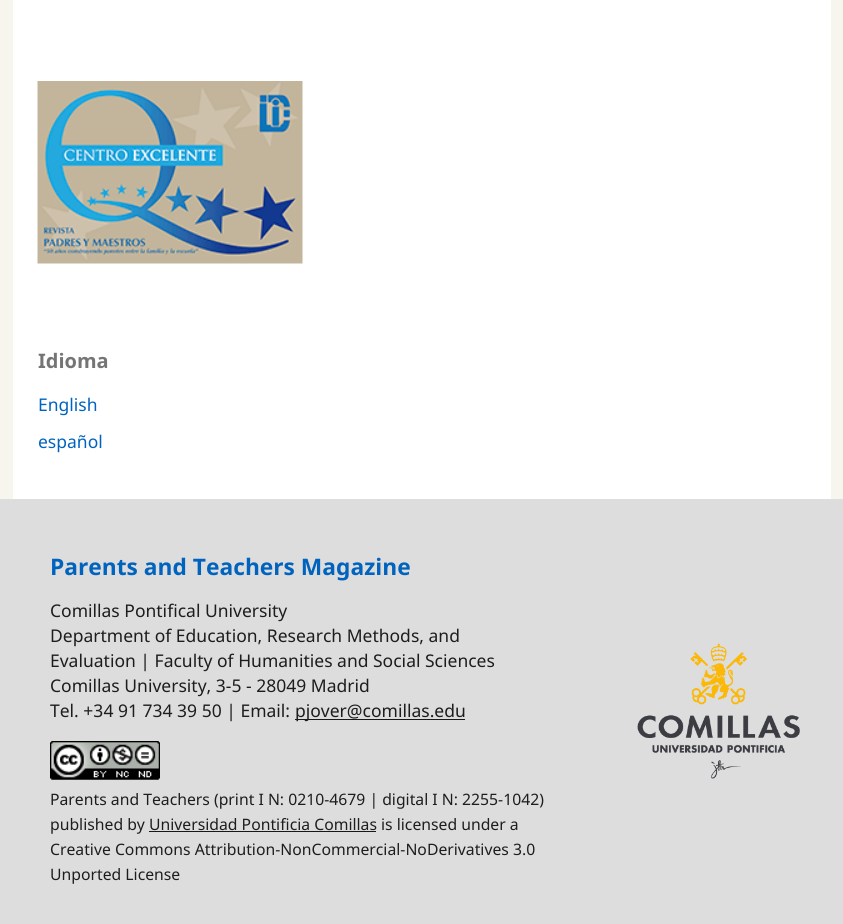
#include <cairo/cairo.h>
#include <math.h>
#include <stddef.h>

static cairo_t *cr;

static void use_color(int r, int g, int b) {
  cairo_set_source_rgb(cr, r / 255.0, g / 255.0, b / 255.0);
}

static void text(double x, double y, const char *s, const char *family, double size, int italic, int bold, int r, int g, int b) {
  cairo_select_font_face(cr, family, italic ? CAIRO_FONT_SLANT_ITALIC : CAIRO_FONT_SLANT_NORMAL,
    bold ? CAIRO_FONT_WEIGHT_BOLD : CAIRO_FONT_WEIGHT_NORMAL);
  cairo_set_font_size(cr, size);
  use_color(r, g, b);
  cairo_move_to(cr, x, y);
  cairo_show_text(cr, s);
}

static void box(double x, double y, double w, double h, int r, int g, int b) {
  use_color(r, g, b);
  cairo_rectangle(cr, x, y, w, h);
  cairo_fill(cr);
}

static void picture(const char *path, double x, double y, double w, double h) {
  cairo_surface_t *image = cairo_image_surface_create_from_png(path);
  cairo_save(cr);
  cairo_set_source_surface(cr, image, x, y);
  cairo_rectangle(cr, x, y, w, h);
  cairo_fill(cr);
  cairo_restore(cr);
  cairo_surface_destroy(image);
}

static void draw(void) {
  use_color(246, 245, 238);
  cairo_paint(cr);
  box(13, 0, 818, 499, 255, 255, 255);
  picture("img_01.png", 37, 81, 266, 183);
  box(0, 499, 843, 425, 221, 221, 221);
  picture("img_02.png", 637, 643, 163, 136);
  box(295, 719, 170, 1, 24, 24, 24);
  picture("img_03.png", 50, 741, 110, 39);
  box(149, 831, 227, 1, 24, 24, 24);
  text(38, 368, "Idioma", "Noto Sans", 20, 0, 1, 117, 117, 117);
  text(38, 411, "English", "Noto Sans", 17.5, 0, 0, 0, 99, 190);
  text(38, 448, "español", "Noto Sans", 17.5, 0, 0, 0, 99, 190);
  text(50, 575, "Parents and Teachers Magazine", "Noto Sans", 22.75, 0, 1, 0, 99, 190);
  text(50, 617, "Comillas Pontifical University", "Noto Sans", 17.5, 0, 0, 29, 29, 29);
  text(50, 642, "Department of Education, Research Methods, and", "Noto Sans", 17.5, 0, 0, 29, 29, 29);
  text(50, 667, "Evaluation | Faculty of Humanities and Social Sciences", "Noto Sans", 17.5, 0, 0, 29, 29, 29);
  text(50, 692, "Comillas University, 3-5 - 28049 Madrid", "Noto Sans", 17.5, 0, 0, 29, 29, 29);
  text(50, 717, "Tel. +34 91 734 39 50 | Email:", "Noto Sans", 17.5, 0, 0, 29, 29, 29);
  text(295, 717, "pjover@comillas.edu", "Noto Sans", 17.5, 0, 0, 29, 29, 29);
  text(50, 805, "Parents and Teachers (print I N: 0210-4679 | digital I N: 2255-1042)", "Noto Sans", 15.75, 0, 0, 29, 29, 29);
  text(50, 830, "published by", "Noto Sans", 15.75, 0, 0, 29, 29, 29);
  text(149, 830, "Universidad Pontificia Comillas", "Noto Sans", 15.75, 0, 0, 29, 29, 29);
  text(381, 830, "is licensed under a", "Noto Sans", 15.75, 0, 0, 29, 29, 29);
  text(50, 855, "Creative Commons Attribution-NonCommercial-NoDerivatives 3.0", "Noto Sans", 15.75, 0, 0, 29, 29, 29);
  text(50, 880, "Unported License", "Noto Sans", 15.75, 0, 0, 29, 29, 29);
}

int main(void) {
  cairo_surface_t *surface = cairo_image_surface_create(CAIRO_FORMAT_RGB24, 843, 924);
  cr = cairo_create(surface);
  cairo_font_options_t *options = cairo_font_options_create();
  cairo_font_options_set_hint_metrics(options, CAIRO_HINT_METRICS_OFF);
  cairo_font_options_set_hint_style(options, CAIRO_HINT_STYLE_NONE);
  cairo_set_font_options(cr, options);
  cairo_set_miter_limit(cr, 4);
  draw();
  cairo_surface_write_to_png(surface, "out.png");
  cairo_font_options_destroy(options);
  cairo_destroy(cr);
  cairo_surface_destroy(surface);
  return 0;
}
